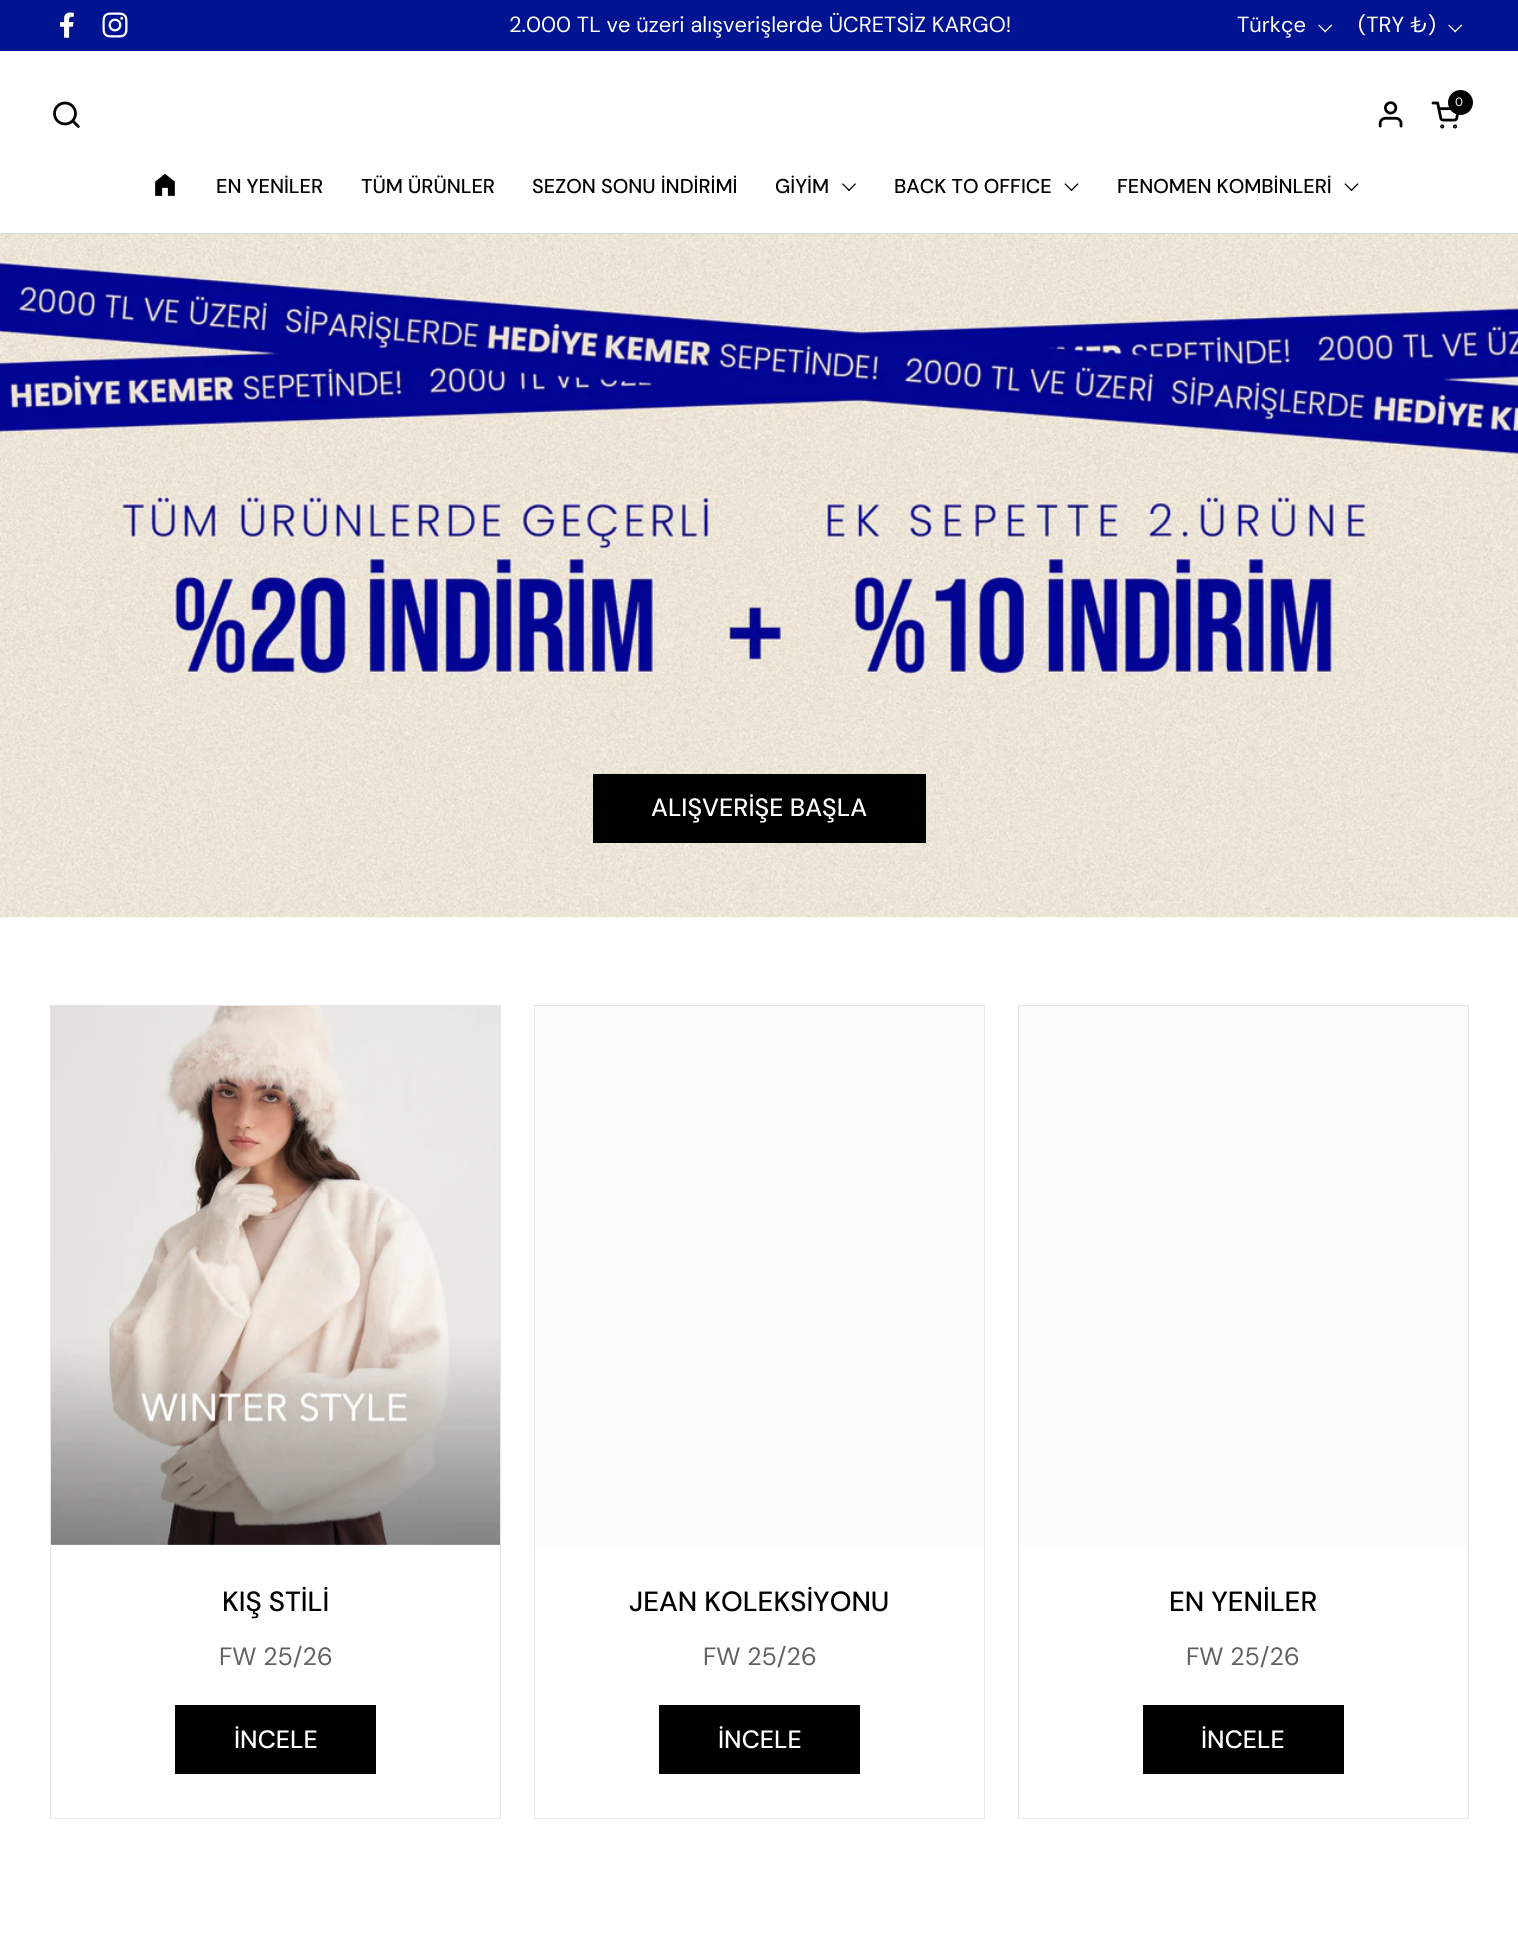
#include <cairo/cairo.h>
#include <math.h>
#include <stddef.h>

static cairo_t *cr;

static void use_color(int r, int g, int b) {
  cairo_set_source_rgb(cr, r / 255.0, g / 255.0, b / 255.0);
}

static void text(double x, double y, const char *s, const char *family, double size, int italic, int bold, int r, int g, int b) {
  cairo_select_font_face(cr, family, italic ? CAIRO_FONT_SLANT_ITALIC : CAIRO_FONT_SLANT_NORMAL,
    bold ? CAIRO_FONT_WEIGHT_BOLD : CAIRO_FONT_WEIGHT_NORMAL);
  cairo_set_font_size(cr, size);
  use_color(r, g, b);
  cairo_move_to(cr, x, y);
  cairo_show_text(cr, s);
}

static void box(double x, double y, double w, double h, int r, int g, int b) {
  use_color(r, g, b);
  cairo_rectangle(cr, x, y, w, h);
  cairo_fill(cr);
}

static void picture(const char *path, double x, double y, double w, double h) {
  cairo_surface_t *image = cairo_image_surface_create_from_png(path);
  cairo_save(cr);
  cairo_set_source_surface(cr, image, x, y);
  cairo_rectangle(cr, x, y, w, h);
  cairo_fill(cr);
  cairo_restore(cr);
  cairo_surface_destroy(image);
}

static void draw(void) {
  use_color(255, 255, 255);
  cairo_paint(cr);
  box(0, 0, 1518, 51, 0, 20, 146);
  picture("img_01.png", 60, 12, 14, 26);
  picture("img_02.png", 102, 12, 26, 26);
  picture("img_03.png", 1318, 24, 15, 9);
  picture("img_03.png", 1448, 24, 15, 9);
  picture("img_04.png", 53, 101, 27, 27);
  picture("img_05.png", 1378, 101, 25, 27);
  use_color(0, 0, 0);
  cairo_arc(cr, 1460.5, 102.5, 12.5, 0, 2 * M_PI);
  cairo_fill(cr);
  picture("img_07.png", 155, 174, 20, 22);
  picture("img_08.png", 842, 183, 14, 8);
  picture("img_09.png", 1064, 183, 15, 8);
  picture("img_09.png", 1344, 183, 15, 8);
  box(1, 233, 1517, 1, 217, 217, 217);
  picture("img_10.png", 0, 234, 1518, 684);
  box(593, 774, 333, 69, 0, 0, 0);
  cairo_rectangle(cr, 50.5, 1005.5, 450, 813);
  use_color(230, 230, 230);
  cairo_set_line_width(cr, 1);
  cairo_stroke(cr);
  picture("img_11.png", 51, 1006, 449, 539);
  box(175, 1705, 201, 69, 0, 0, 0);
  cairo_rectangle(cr, 534.5, 1005.5, 450, 813);
  use_color(230, 230, 230);
  cairo_stroke(cr);
  box(535, 1006, 449, 539, 251, 251, 251);
  box(659, 1705, 201, 69, 0, 0, 0);
  cairo_rectangle(cr, 1018.5, 1005.5, 450, 813);
  use_color(230, 230, 230);
  cairo_stroke(cr);
  box(1019, 1006, 449, 539, 251, 251, 251);
  box(1143, 1705, 201, 69, 0, 0, 0);
  text(509, 32, "2.000 TL ve üzeri alışverişlerde ÜCRETSİZ KARGO!", "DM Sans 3", 21.9, 0, 0, 255, 255, 255);
  text(1237, 32, "Türkçe", "DM Sans 3", 21.9, 0, 0, 255, 255, 255);
  text(1358, 32, "(TRY ₺)", "DM Sans 3", 21.9, 0, 0, 255, 255, 255);
  text(1455, 106, "0", "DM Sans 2", 12, 0, 0, 255, 255, 255);
  picture("img_06.png", 1431, 101, 28, 28);
  text(216, 193, "EN YENİLER", "DM Sans 3 Medium", 20, 0, 0, 0, 0, 0);
  text(361, 193, "TÜM ÜRÜNLER", "DM Sans 3 Medium", 20, 0, 0, 0, 0, 0);
  text(532, 193, "SEZON SONU İNDİRİMİ", "DM Sans 3 Medium", 20, 0, 0, 0, 0, 0);
  text(775, 193, "GİYİM", "DM Sans 3 Medium", 20, 0, 0, 0, 0, 0);
  text(894, 193, "BACK TO OFFICE", "DM Sans 3 Medium", 20, 0, 0, 0, 0, 0);
  text(1117, 193, "FENOMEN KOMBİNLERİ", "DM Sans 3 Medium", 20, 0, 0, 0, 0, 0);
  text(651, 816, "ALIŞVERİŞE BAŞLA", "DM Sans 2 Medium", 25, 0, 0, 255, 255, 255);
  text(222, 1611, "KIŞ STİLİ", "DM Sans Medium", 27.75, 0, 0, 0, 0, 0);
  text(219, 1665, "FW 25/26", "DM Sans", 25, 0, 0, 97, 97, 97);
  text(234, 1748, "İNCELE", "DM Sans 2 Medium", 25, 0, 0, 255, 255, 255);
  text(629, 1611, "JEAN KOLEKSİYONU", "DM Sans Medium", 27.75, 0, 0, 0, 0, 0);
  text(703, 1665, "FW 25/26", "DM Sans", 25, 0, 0, 97, 97, 97);
  text(718, 1748, "İNCELE", "DM Sans 2 Medium", 25, 0, 0, 255, 255, 255);
  text(1169, 1611, "EN YENİLER", "DM Sans Medium", 27.75, 0, 0, 0, 0, 0);
  text(1186, 1665, "FW 25/26", "DM Sans", 25, 0, 0, 97, 97, 97);
  text(1201, 1748, "İNCELE", "DM Sans 2 Medium", 25, 0, 0, 255, 255, 255);
}

int main(void) {
  cairo_surface_t *surface = cairo_image_surface_create(CAIRO_FORMAT_RGB24, 1518, 1939);
  cr = cairo_create(surface);
  cairo_font_options_t *options = cairo_font_options_create();
  cairo_font_options_set_hint_metrics(options, CAIRO_HINT_METRICS_OFF);
  cairo_font_options_set_hint_style(options, CAIRO_HINT_STYLE_NONE);
  cairo_set_font_options(cr, options);
  cairo_set_miter_limit(cr, 4);
  draw();
  cairo_surface_write_to_png(surface, "out.png");
  cairo_font_options_destroy(options);
  cairo_destroy(cr);
  cairo_surface_destroy(surface);
  return 0;
}
